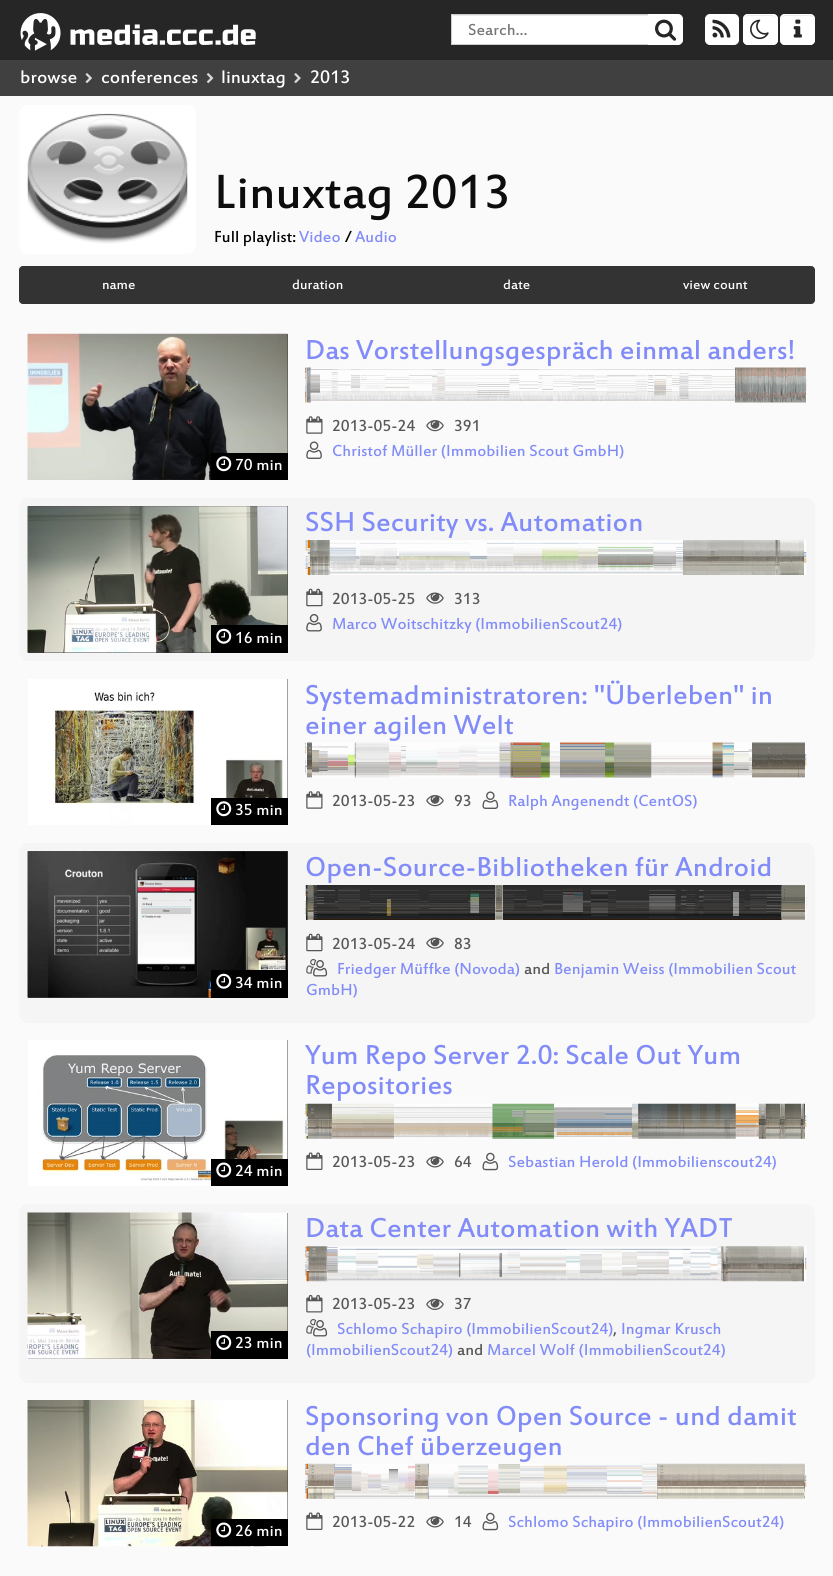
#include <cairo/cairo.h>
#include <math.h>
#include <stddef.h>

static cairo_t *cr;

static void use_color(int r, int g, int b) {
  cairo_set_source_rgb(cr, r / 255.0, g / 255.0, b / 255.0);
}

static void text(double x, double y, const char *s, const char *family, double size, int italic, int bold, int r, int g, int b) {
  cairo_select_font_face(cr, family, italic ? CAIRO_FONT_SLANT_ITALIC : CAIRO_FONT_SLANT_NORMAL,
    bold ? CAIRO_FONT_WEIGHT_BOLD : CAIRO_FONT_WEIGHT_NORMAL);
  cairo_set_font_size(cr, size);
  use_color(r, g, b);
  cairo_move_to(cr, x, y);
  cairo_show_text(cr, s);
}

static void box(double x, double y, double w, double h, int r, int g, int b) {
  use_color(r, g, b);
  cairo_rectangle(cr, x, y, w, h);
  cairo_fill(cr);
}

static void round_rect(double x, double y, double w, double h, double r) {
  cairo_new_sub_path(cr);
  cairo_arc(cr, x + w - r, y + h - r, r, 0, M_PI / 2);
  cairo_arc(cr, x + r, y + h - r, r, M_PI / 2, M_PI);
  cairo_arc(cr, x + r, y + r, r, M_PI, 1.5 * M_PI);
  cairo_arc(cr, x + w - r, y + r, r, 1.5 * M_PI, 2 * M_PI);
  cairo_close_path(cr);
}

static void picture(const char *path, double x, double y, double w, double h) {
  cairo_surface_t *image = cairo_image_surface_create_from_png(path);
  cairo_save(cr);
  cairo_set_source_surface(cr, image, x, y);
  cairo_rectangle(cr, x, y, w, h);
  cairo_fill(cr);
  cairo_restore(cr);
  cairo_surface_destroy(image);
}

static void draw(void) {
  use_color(250, 250, 250);
  cairo_paint(cr);
  box(0, 0, 833, 60, 38, 38, 38);
  picture("img_01.png", 20, 13, 236, 38);
  box(452, 15, 196, 29, 255, 255, 255);
  box(453, 15, 195, 1, 236, 236, 236);
  cairo_rectangle(cr, 451.5, 14.5, 197, 30);
  use_color(204, 204, 204);
  cairo_set_line_width(cr, 1);
  cairo_stroke(cr);
  use_color(255, 255, 255);
  cairo_new_path(cr);
  cairo_move_to(cr, 648.5, 14.5);
  cairo_line_to(cr, 678, 14.5);
  cairo_curve_to(cr, 680.5, 14.5, 682.5, 16.5, 682.5, 19);
  cairo_line_to(cr, 682.5, 40);
  cairo_curve_to(cr, 682.5, 42.5, 680.5, 44.5, 678, 44.5);
  cairo_line_to(cr, 648.5, 44.5);
  cairo_close_path(cr);
  cairo_fill_preserve(cr);
  cairo_stroke(cr);
  picture("img_02.png", 655, 19, 22, 22);
  round_rect(705.5, 14.5, 33, 30, 4.5);
  cairo_fill_preserve(cr);
  cairo_stroke(cr);
  picture("img_03.png", 712, 19, 19, 19);
  round_rect(743, 14, 35, 31, 5);
  cairo_fill(cr);
  use_color(236, 236, 236);
  cairo_set_fill_rule(cr, CAIRO_FILL_RULE_EVEN_ODD);
  cairo_new_path(cr);
  cairo_move_to(cr, 748, 16);
  cairo_line_to(cr, 768, 16);
  cairo_curve_to(cr, 773.5, 16, 775.5, 16.5, 776, 19);
  cairo_curve_to(cr, 776, 16.5, 774, 15, 772, 15);
  cairo_line_to(cr, 748, 15);
  cairo_curve_to(cr, 746, 15, 744, 17, 744, 19);
  cairo_line_to(cr, 744, 19.5);
  cairo_curve_to(cr, 744, 17.5, 745, 16, 748, 16);
  cairo_close_path(cr);
  cairo_move_to(cr, 744, 41);
  cairo_line_to(cr, 744, 38);
  cairo_close_path(cr);
  cairo_fill(cr);
  round_rect(743.5, 14.5, 34, 30, 4.5);
  use_color(255, 255, 255);
  cairo_stroke(cr);
  picture("img_04.png", 750, 19, 19, 21);
  round_rect(780, 14, 35, 31, 5);
  cairo_fill(cr);
  use_color(236, 236, 236);
  cairo_new_path(cr);
  cairo_move_to(cr, 785, 16);
  cairo_line_to(cr, 806, 16);
  cairo_curve_to(cr, 812.5, 16, 814, 17, 814, 21);
  cairo_line_to(cr, 814, 19);
  cairo_curve_to(cr, 814, 17, 812, 15, 810, 15);
  cairo_line_to(cr, 785, 15);
  cairo_curve_to(cr, 783, 15, 781, 17, 781, 19);
  cairo_line_to(cr, 781, 24);
  cairo_curve_to(cr, 781, 21, 781, 16, 785, 16);
  cairo_close_path(cr);
  cairo_move_to(cr, 781, 41);
  cairo_line_to(cr, 781, 38);
  cairo_close_path(cr);
  cairo_fill(cr);
  round_rect(780.5, 14.5, 34, 30, 4.5);
  use_color(255, 255, 255);
  cairo_stroke(cr);
  picture("img_05.png", 793, 19, 9, 19);
  box(0, 60, 833, 36, 64, 64, 64);
  picture("img_06.png", 85, 73, 7, 10);
  picture("img_07.png", 206, 73, 8, 11);
  picture("img_08.png", 294, 73, 7, 11);
  use_color(255, 255, 255);
  round_rect(19, 105, 177, 149, 9);
  cairo_fill(cr);
  picture("img_09.png", 27, 113, 161, 131);
  use_color(51, 51, 51);
  cairo_new_path(cr);
  cairo_move_to(cr, 23, 266.5);
  cairo_line_to(cr, 217.5, 266.5);
  cairo_line_to(cr, 217.5, 303.5);
  cairo_line_to(cr, 23, 303.5);
  cairo_curve_to(cr, 21, 303.5, 19.5, 302, 19.5, 300);
  cairo_line_to(cr, 19.5, 270);
  cairo_curve_to(cr, 19.5, 268, 21, 266.5, 23, 266.5);
  cairo_close_path(cr);
  cairo_fill_preserve(cr);
  cairo_stroke(cr);
  box(218, 266, 398, 38, 51, 51, 51);
  cairo_new_path(cr);
  cairo_move_to(cr, 616.5, 266.5);
  cairo_line_to(cr, 811, 266.5);
  cairo_curve_to(cr, 813, 266.5, 814.5, 268, 814.5, 270);
  cairo_line_to(cr, 814.5, 300);
  cairo_curve_to(cr, 814.5, 302, 813, 303.5, 811, 303.5);
  cairo_line_to(cr, 616.5, 303.5);
  cairo_close_path(cr);
  cairo_fill_preserve(cr);
  cairo_stroke(cr);
  picture("img_10.png", 305, 367, 502, 36);
  picture("img_11.png", 306, 416, 17, 18);
  picture("img_12.png", 426, 420, 18, 12);
  picture("img_13.png", 306, 441, 16, 18);
  box(287, 334, 1, 119, 64, 64, 64);
  picture("img_14.png", 27, 333, 261, 147);
  box(211, 453, 77, 27, 0, 0, 0);
  picture("img_15.png", 216, 456, 16, 16);
  use_color(245, 245, 245);
  round_rect(19, 498, 796, 163, 9);
  cairo_fill(cr);
  picture("img_16.png", 305, 540, 502, 35);
  picture("img_17.png", 306, 588, 17, 19);
  picture("img_18.png", 426, 592, 18, 12);
  picture("img_19.png", 306, 614, 16, 18);
  box(28, 506, 260, 147, 64, 64, 64);
  picture("img_20.png", 27, 506, 261, 147);
  box(211, 625, 77, 28, 0, 0, 0);
  picture("img_21.png", 216, 628, 16, 16);
  box(287, 679, 1, 119, 64, 64, 64);
  picture("img_22.png", 28, 679, 260, 146);
  box(211, 798, 77, 27, 0, 0, 0);
  picture("img_15.png", 216, 801, 16, 16);
  picture("img_23.png", 305, 742, 502, 36);
  picture("img_11.png", 306, 791, 17, 18);
  picture("img_12.png", 426, 795, 18, 12);
  picture("img_24.png", 482, 791, 17, 18);
  use_color(245, 245, 245);
  round_rect(19, 843, 796, 180, 9);
  cairo_fill(cr);
  box(28, 851, 260, 147, 64, 64, 64);
  picture("img_25.png", 27, 851, 261, 147);
  box(211, 970, 77, 28, 0, 0, 0);
  picture("img_21.png", 216, 973, 16, 16);
  picture("img_26.png", 305, 885, 502, 35);
  picture("img_17.png", 306, 933, 17, 19);
  picture("img_18.png", 426, 937, 18, 12);
  picture("img_27.png", 306, 959, 22, 18);
  box(287, 1040, 1, 119, 64, 64, 64);
  picture("img_28.png", 28, 1040, 260, 146);
  box(211, 1159, 77, 27, 0, 0, 0);
  picture("img_29.png", 216, 1162, 16, 16);
  picture("img_30.png", 305, 1103, 502, 36);
  picture("img_31.png", 306, 1152, 17, 18);
  picture("img_32.png", 426, 1156, 18, 12);
  picture("img_33.png", 482, 1152, 17, 19);
  use_color(245, 245, 245);
  round_rect(19, 1204, 796, 179, 9);
  cairo_fill(cr);
  box(28, 1213, 260, 146, 64, 64, 64);
  picture("img_34.png", 27, 1212, 261, 147);
  box(211, 1331, 77, 28, 0, 0, 0);
  picture("img_35.png", 216, 1335, 16, 15);
  picture("img_36.png", 305, 1246, 502, 36);
  picture("img_37.png", 306, 1295, 17, 18);
  picture("img_38.png", 426, 1298, 18, 12);
  picture("img_27.png", 306, 1319, 22, 18);
  box(287, 1400, 1, 119, 64, 64, 64);
  picture("img_39.png", 27, 1400, 261, 147);
  box(211, 1519, 77, 27, 0, 0, 0);
  picture("img_29.png", 216, 1522, 16, 16);
  picture("img_40.png", 305, 1463, 502, 36);
  picture("img_31.png", 306, 1512, 17, 18);
  picture("img_32.png", 426, 1516, 18, 12);
  picture("img_33.png", 482, 1512, 17, 19);
  text(468, 35, "Search…", "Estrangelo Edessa", 17.5, 0, 0, 119, 119, 119);
  text(20, 83, "browse", "Estrangelo Edessa", 20, 0, 0, 255, 255, 255);
  text(101, 83, "conferences", "Estrangelo Edessa", 20, 0, 0, 255, 255, 255);
  text(221, 83, "linuxtag", "Estrangelo Edessa", 20, 0, 0, 255, 255, 255);
  text(310, 83, "2013", "Estrangelo Edessa", 20, 0, 0, 255, 255, 255);
  text(214, 208, "Linuxtag 2013", "Estrangelo Edessa", 52.5, 0, 0, 13, 13, 13);
  text(214, 242, "Full playlist:", "Estrangelo Edessa", 17.5, 0, 0, 0, 0, 0);
  text(299, 242, "Video", "Estrangelo Edessa", 17.5, 0, 0, 129, 140, 248);
  text(345, 242, "/", "Estrangelo Edessa", 17.5, 0, 0, 0, 0, 0);
  text(355, 242, "Audio", "Estrangelo Edessa", 17.5, 0, 0, 129, 140, 248);
  text(102, 289, "name", "Estrangelo Edessa", 15, 0, 0, 255, 255, 255);
  text(292, 289, "duration", "Estrangelo Edessa", 15, 0, 0, 255, 255, 255);
  text(503, 289, "date", "Estrangelo Edessa", 15, 0, 0, 255, 255, 255);
  text(683, 289, "view count", "Estrangelo Edessa", 15, 0, 0, 255, 255, 255);
  text(305, 359, "Das Vorstellungsgespräch einmal anders!", "Estrangelo Edessa", 30, 0, 0, 129, 140, 248);
  text(332, 431, "2013-05-24", "Estrangelo Edessa", 17.5, 0, 0, 88, 88, 88);
  text(454, 431, "391", "Estrangelo Edessa", 17.5, 0, 0, 88, 88, 88);
  text(332, 456, "Christof Müller (Immobilien Scout GmbH)", "Estrangelo Edessa", 17.5, 0, 0, 129, 140, 248);
  text(235, 470, "70 min", "Estrangelo Edessa", 17.5, 0, 0, 255, 255, 255);
  text(305, 531, "SSH Security vs. Automation", "Estrangelo Edessa", 30, 0, 0, 129, 140, 248);
  text(332, 604, "2013-05-25", "Estrangelo Edessa", 17.5, 0, 0, 88, 88, 88);
  text(454, 604, "313", "Estrangelo Edessa", 17.5, 0, 0, 88, 88, 88);
  text(332, 629, "Marco Woitschitzky (ImmobilienScout24)", "Estrangelo Edessa", 17.5, 0, 0, 129, 140, 248);
  text(235, 643, "16 min", "Estrangelo Edessa", 17.5, 0, 0, 255, 255, 255);
  text(235, 815, "35 min", "Estrangelo Edessa", 17.5, 0, 0, 255, 255, 255);
  text(305, 704, "Systemadministratoren: \"Überleben\" in", "Estrangelo Edessa", 30, 0, 0, 129, 140, 248);
  text(305, 734, "einer agilen Welt", "Estrangelo Edessa", 30, 0, 0, 129, 140, 248);
  text(332, 806, "2013-05-23", "Estrangelo Edessa", 17.5, 0, 0, 88, 88, 88);
  text(454, 806, "93", "Estrangelo Edessa", 17.5, 0, 0, 88, 88, 88);
  text(508, 806, "Ralph Angenendt (CentOS)", "Estrangelo Edessa", 17.5, 0, 0, 129, 140, 248);
  text(235, 988, "34 min", "Estrangelo Edessa", 17.5, 0, 0, 255, 255, 255);
  text(305, 876, "Open-Source-Bibliotheken für Android", "Estrangelo Edessa", 30, 0, 0, 129, 140, 248);
  text(332, 949, "2013-05-24", "Estrangelo Edessa", 17.5, 0, 0, 88, 88, 88);
  text(454, 949, "83", "Estrangelo Edessa", 17.5, 0, 0, 88, 88, 88);
  text(337, 974, "Friedger Müffke (Novoda)", "Estrangelo Edessa", 17.5, 0, 0, 129, 140, 248);
  text(524, 974, "and", "Estrangelo Edessa", 17.5, 0, 0, 88, 88, 88);
  text(554, 974, "Benjamin Weiss (Immobilien Scout", "Estrangelo Edessa", 17.5, 0, 0, 129, 140, 248);
  text(306, 995, "GmbH)", "Estrangelo Edessa", 17.5, 0, 0, 129, 140, 248);
  text(235, 1176, "24 min", "Estrangelo Edessa", 17.5, 0, 0, 255, 255, 255);
  text(305, 1064, "Yum Repo Server 2.0: Scale Out Yum", "Estrangelo Edessa", 30, 0, 0, 129, 140, 248);
  text(305, 1094, "Repositories", "Estrangelo Edessa", 30, 0, 0, 129, 140, 248);
  text(332, 1167, "2013-05-23", "Estrangelo Edessa", 17.5, 0, 0, 88, 88, 88);
  text(454, 1167, "64", "Estrangelo Edessa", 17.5, 0, 0, 88, 88, 88);
  text(508, 1167, "Sebastian Herold (Immobilienscout24)", "Estrangelo Edessa", 17.5, 0, 0, 129, 140, 248);
  text(235, 1348, "23 min", "Estrangelo Edessa", 17.5, 0, 0, 255, 255, 255);
  text(305, 1237, "Data Center Automation with YADT", "Estrangelo Edessa", 30, 0, 0, 129, 140, 248);
  text(332, 1309, "2013-05-23", "Estrangelo Edessa", 17.5, 0, 0, 88, 88, 88);
  text(454, 1309, "37", "Estrangelo Edessa", 17.5, 0, 0, 88, 88, 88);
  text(337, 1334, "Schlomo Schapiro (ImmobilienScout24)", "Estrangelo Edessa", 17.5, 0, 0, 129, 140, 248);
  text(613, 1334, ",", "Estrangelo Edessa", 17.5, 0, 0, 88, 88, 88);
  text(621, 1334, "Ingmar Krusch", "Estrangelo Edessa", 17.5, 0, 0, 129, 140, 248);
  text(306, 1355, "(ImmobilienScout24)", "Estrangelo Edessa", 17.5, 0, 0, 129, 140, 248);
  text(457, 1355, "and", "Estrangelo Edessa", 17.5, 0, 0, 88, 88, 88);
  text(487, 1355, "Marcel Wolf (ImmobilienScout24)", "Estrangelo Edessa", 17.5, 0, 0, 129, 140, 248);
  text(235, 1536, "26 min", "Estrangelo Edessa", 17.5, 0, 0, 255, 255, 255);
  text(305, 1425, "Sponsoring von Open Source - und damit", "Estrangelo Edessa", 30, 0, 0, 129, 140, 248);
  text(305, 1455, "den Chef überzeugen", "Estrangelo Edessa", 30, 0, 0, 129, 140, 248);
  text(332, 1527, "2013-05-22", "Estrangelo Edessa", 17.5, 0, 0, 88, 88, 88);
  text(454, 1527, "14", "Estrangelo Edessa", 17.5, 0, 0, 88, 88, 88);
  text(508, 1527, "Schlomo Schapiro (ImmobilienScout24)", "Estrangelo Edessa", 17.5, 0, 0, 129, 140, 248);
}

int main(void) {
  cairo_surface_t *surface = cairo_image_surface_create(CAIRO_FORMAT_RGB24, 833, 1576);
  cr = cairo_create(surface);
  cairo_font_options_t *options = cairo_font_options_create();
  cairo_font_options_set_hint_metrics(options, CAIRO_HINT_METRICS_OFF);
  cairo_font_options_set_hint_style(options, CAIRO_HINT_STYLE_NONE);
  cairo_set_font_options(cr, options);
  cairo_set_miter_limit(cr, 4);
  draw();
  cairo_surface_write_to_png(surface, "out.png");
  cairo_font_options_destroy(options);
  cairo_destroy(cr);
  cairo_surface_destroy(surface);
  return 0;
}
